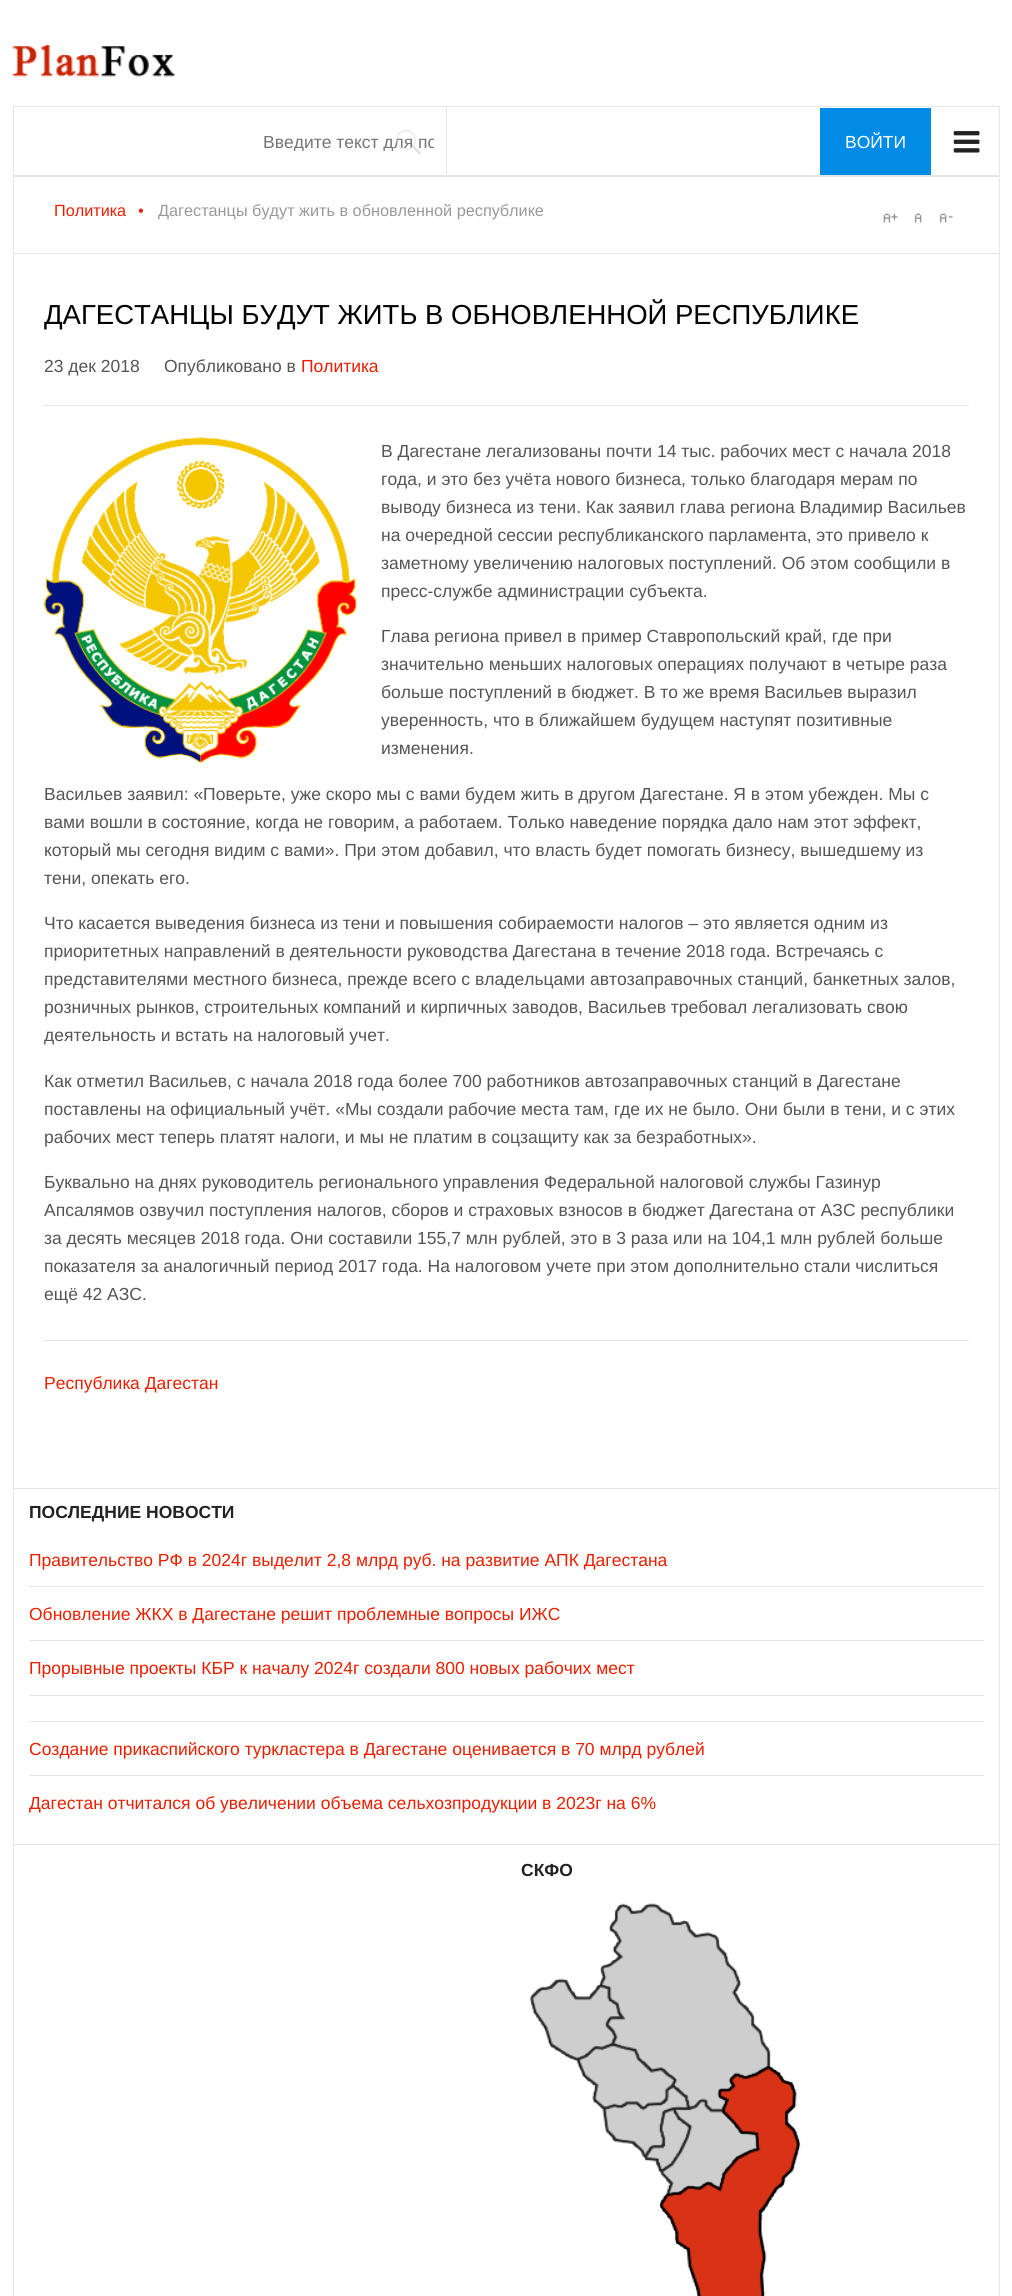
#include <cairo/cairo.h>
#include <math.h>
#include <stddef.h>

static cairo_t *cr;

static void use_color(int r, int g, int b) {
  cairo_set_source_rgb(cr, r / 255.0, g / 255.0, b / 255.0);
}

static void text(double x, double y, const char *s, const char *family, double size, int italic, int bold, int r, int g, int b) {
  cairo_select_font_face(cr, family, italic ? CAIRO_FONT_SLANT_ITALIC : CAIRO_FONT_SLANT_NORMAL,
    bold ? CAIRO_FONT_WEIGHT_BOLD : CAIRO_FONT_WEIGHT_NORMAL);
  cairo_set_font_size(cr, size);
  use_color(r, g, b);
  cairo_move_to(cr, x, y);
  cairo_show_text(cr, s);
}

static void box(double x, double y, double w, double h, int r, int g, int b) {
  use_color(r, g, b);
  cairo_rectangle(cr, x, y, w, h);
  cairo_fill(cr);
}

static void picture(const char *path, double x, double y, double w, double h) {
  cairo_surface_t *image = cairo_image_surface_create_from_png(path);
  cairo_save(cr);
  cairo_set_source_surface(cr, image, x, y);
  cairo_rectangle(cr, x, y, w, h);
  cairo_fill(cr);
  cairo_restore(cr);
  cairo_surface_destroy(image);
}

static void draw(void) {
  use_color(255, 255, 255);
  cairo_paint(cr);
  box(13, 175, 987, 2, 229, 229, 229);
  picture("img_01.png", 12, 44, 163, 33);
  box(446, 108, 1, 67, 229, 229, 229);
  box(13, 106, 987, 1, 229, 229, 229);
  box(999, 106, 1, 69, 229, 229, 229);
  box(13, 106, 1, 69, 229, 229, 229);
  box(820, 108, 111, 67, 0, 140, 230);
  picture("img_03.png", 953, 131, 27, 22);
  box(999, 178, 1, 2118, 229, 229, 229);
  box(13, 178, 1, 2118, 229, 229, 229);
  box(14, 253, 985, 1, 229, 229, 229);
  picture("img_04.png", 138, 208, 5, 5);
  picture("img_05.png", 883, 213, 15, 10);
  picture("img_06.png", 914, 213, 8, 10);
  picture("img_07.png", 939, 213, 14, 10);
  box(44, 405, 925, 1, 229, 229, 229);
  picture("img_08.png", 43, 437, 314, 326);
  box(44, 1340, 925, 1, 229, 229, 229);
  box(14, 1488, 985, 1, 229, 229, 229);
  box(29, 1586, 955, 1, 229, 229, 229);
  box(29, 1640, 955, 1, 229, 229, 229);
  box(29, 1695, 955, 1, 229, 229, 229);
  box(29, 1721, 955, 1, 229, 229, 229);
  box(29, 1775, 955, 1, 229, 229, 229);
  box(14, 1844, 985, 1, 229, 229, 229);
  picture("img_09.png", 529, 1903, 272, 393);
  picture("img_10.png", 660, 2066, 140, 230);
  cairo_save(cr);
  cairo_rectangle(cr, 263, 131, 171, 20);
  cairo_clip(cr);
  text(263, 148, "Введите текст для по", "Liberation Sans", 17.5, 0, 0, 117, 117, 117);
  cairo_restore(cr);
  picture("img_02.png", 396, 130, 25, 25);
  text(845, 148, "ВОЙТИ", "Liberation Sans", 17.5, 0, 0, 255, 255, 255);
  text(54, 216, "Политика", "Liberation Sans", 16.25, 0, 0, 235, 30, 0);
  text(158, 216, "Дагестанцы будут жить в обновленной республике", "Liberation Sans", 16.25, 0, 0, 153, 153, 153);
  text(44, 324, "ДАГЕСТАНЦЫ БУДУТ ЖИТЬ В ОБНОВЛЕННОЙ РЕСПУБЛИКЕ", "Liberation Sans", 27.5, 0, 0, 0, 0, 0);
  text(44, 372, "23 дек 2018", "Liberation Sans", 17.5, 0, 0, 85, 85, 85);
  text(164, 372, "Опубликовано в", "Liberation Sans", 17.5, 0, 0, 85, 85, 85);
  text(301, 372, "Политика", "Liberation Sans", 17.5, 0, 0, 235, 30, 0);
  text(381, 457, "В Дагестане легализованы почти 14 тыс. рабочих мест с начала 2018", "Liberation Sans", 17.5, 0, 0, 85, 85, 85);
  text(381, 485, "года, и это без учёта нового бизнеса, только благодаря мерам по", "Liberation Sans", 17.5, 0, 0, 85, 85, 85);
  text(381, 513, "выводу бизнеса из тени. Как заявил глава региона Владимир Васильев", "Liberation Sans", 17.5, 0, 0, 85, 85, 85);
  text(381, 541, "на очередной сессии республиканского парламента, это привело к", "Liberation Sans", 17.5, 0, 0, 85, 85, 85);
  text(381, 569, "заметному увеличению налоговых поступлений. Об этом сообщили в", "Liberation Sans", 17.5, 0, 0, 85, 85, 85);
  text(381, 597, "пресс-службе администрации субъекта.", "Liberation Sans", 17.5, 0, 0, 85, 85, 85);
  text(381, 642, "Глава региона привел в пример Ставропольский край, где при", "Liberation Sans", 17.5, 0, 0, 85, 85, 85);
  text(381, 670, "значительно меньших налоговых операциях получают в четыре раза", "Liberation Sans", 17.5, 0, 0, 85, 85, 85);
  text(381, 698, "больше поступлений в бюджет. В то же время Васильев выразил", "Liberation Sans", 17.5, 0, 0, 85, 85, 85);
  text(381, 726, "уверенность, что в ближайшем будущем наступят позитивные", "Liberation Sans", 17.5, 0, 0, 85, 85, 85);
  text(381, 754, "изменения.", "Liberation Sans", 17.5, 0, 0, 85, 85, 85);
  text(44, 800, "Васильев заявил: «Поверьте, уже скоро мы с вами будем жить в другом Дагестане. Я в этом убежден. Мы с", "Liberation Sans", 17.5, 0, 0, 85, 85, 85);
  text(44, 828, "вами вошли в состояние, когда не говорим, а работаем. Только наведение порядка дало нам этот эффект,", "Liberation Sans", 17.5, 0, 0, 85, 85, 85);
  text(44, 856, "который мы сегодня видим с вами». При этом добавил, что власть будет помогать бизнесу, вышедшему из", "Liberation Sans", 17.5, 0, 0, 85, 85, 85);
  text(44, 884, "тени, опекать его.", "Liberation Sans", 17.5, 0, 0, 85, 85, 85);
  text(44, 929, "Что касается выведения бизнеса из тени и повышения собираемости налогов – это является одним из", "Liberation Sans", 17.5, 0, 0, 85, 85, 85);
  text(44, 957, "приоритетных направлений в деятельности руководства Дагестана в течение 2018 года. Встречаясь с", "Liberation Sans", 17.5, 0, 0, 85, 85, 85);
  text(44, 985, "представителями местного бизнеса, прежде всего с владельцами автозаправочных станций, банкетных залов,", "Liberation Sans", 17.5, 0, 0, 85, 85, 85);
  text(44, 1013, "розничных рынков, строительных компаний и кирпичных заводов, Васильев требовал легализовать свою", "Liberation Sans", 17.5, 0, 0, 85, 85, 85);
  text(44, 1041, "деятельность и встать на налоговый учет.", "Liberation Sans", 17.5, 0, 0, 85, 85, 85);
  text(44, 1087, "Как отметил Васильев, с начала 2018 года более 700 работников автозаправочных станций в Дагестане", "Liberation Sans", 17.5, 0, 0, 85, 85, 85);
  text(44, 1115, "поставлены на официальный учёт. «Мы создали рабочие места там, где их не было. Они были в тени, и с этих", "Liberation Sans", 17.5, 0, 0, 85, 85, 85);
  text(44, 1143, "рабочих мест теперь платят налоги, и мы не платим в соцзащиту как за безработных».", "Liberation Sans", 17.5, 0, 0, 85, 85, 85);
  text(44, 1188, "Буквально на днях руководитель регионального управления Федеральной налоговой службы Газинур", "Liberation Sans", 17.5, 0, 0, 85, 85, 85);
  text(44, 1216, "Апсалямов озвучил поступления налогов, сборов и страховых взносов в бюджет Дагестана от АЗС республики", "Liberation Sans", 17.5, 0, 0, 85, 85, 85);
  text(44, 1244, "за десять месяцев 2018 года. Они составили 155,7 млн рублей, это в 3 раза или на 104,1 млн рублей больше", "Liberation Sans", 17.5, 0, 0, 85, 85, 85);
  text(44, 1272, "показателя за аналогичный период 2017 года. На налоговом учете при этом дополнительно стали числиться", "Liberation Sans", 17.5, 0, 0, 85, 85, 85);
  text(44, 1300, "ещё 42 АЗС.", "Liberation Sans", 17.5, 0, 0, 85, 85, 85);
  text(44, 1389, "Республика Дагестан", "Liberation Sans", 17.5, 0, 0, 235, 30, 0);
  text(29, 1518, "ПОСЛЕДНИЕ НОВОСТИ", "Liberation Sans", 17.5, 0, 1, 34, 34, 34);
  text(29, 1566, "Правительство РФ в 2024г выделит 2,8 млрд руб. на развитие АПК Дагестана", "Liberation Sans", 17.5, 0, 0, 235, 30, 0);
  text(29, 1620, "Обновление ЖКХ в Дагестане решит проблемные вопросы ИЖС", "Liberation Sans", 17.5, 0, 0, 235, 30, 0);
  text(29, 1674, "Прорывные проекты КБР к началу 2024г создали 800 новых рабочих мест", "Liberation Sans", 17.5, 0, 0, 235, 30, 0);
  text(29, 1755, "Создание прикаспийского туркластера в Дагестане оценивается в 70 млрд рублей", "Liberation Sans", 17.5, 0, 0, 235, 30, 0);
  text(29, 1809, "Дагестан отчитался об увеличении объема сельхозпродукции в 2023г на 6%", "Liberation Sans", 17.5, 0, 0, 235, 30, 0);
  text(521, 1876, "СКФО", "Liberation Sans", 17.5, 0, 1, 34, 34, 34);
}

int main(void) {
  cairo_surface_t *surface = cairo_image_surface_create(CAIRO_FORMAT_RGB24, 1012, 2296);
  cr = cairo_create(surface);
  cairo_font_options_t *options = cairo_font_options_create();
  cairo_font_options_set_hint_metrics(options, CAIRO_HINT_METRICS_OFF);
  cairo_font_options_set_hint_style(options, CAIRO_HINT_STYLE_NONE);
  cairo_set_font_options(cr, options);
  cairo_set_miter_limit(cr, 4);
  draw();
  cairo_surface_write_to_png(surface, "out.png");
  cairo_font_options_destroy(options);
  cairo_destroy(cr);
  cairo_surface_destroy(surface);
  return 0;
}
